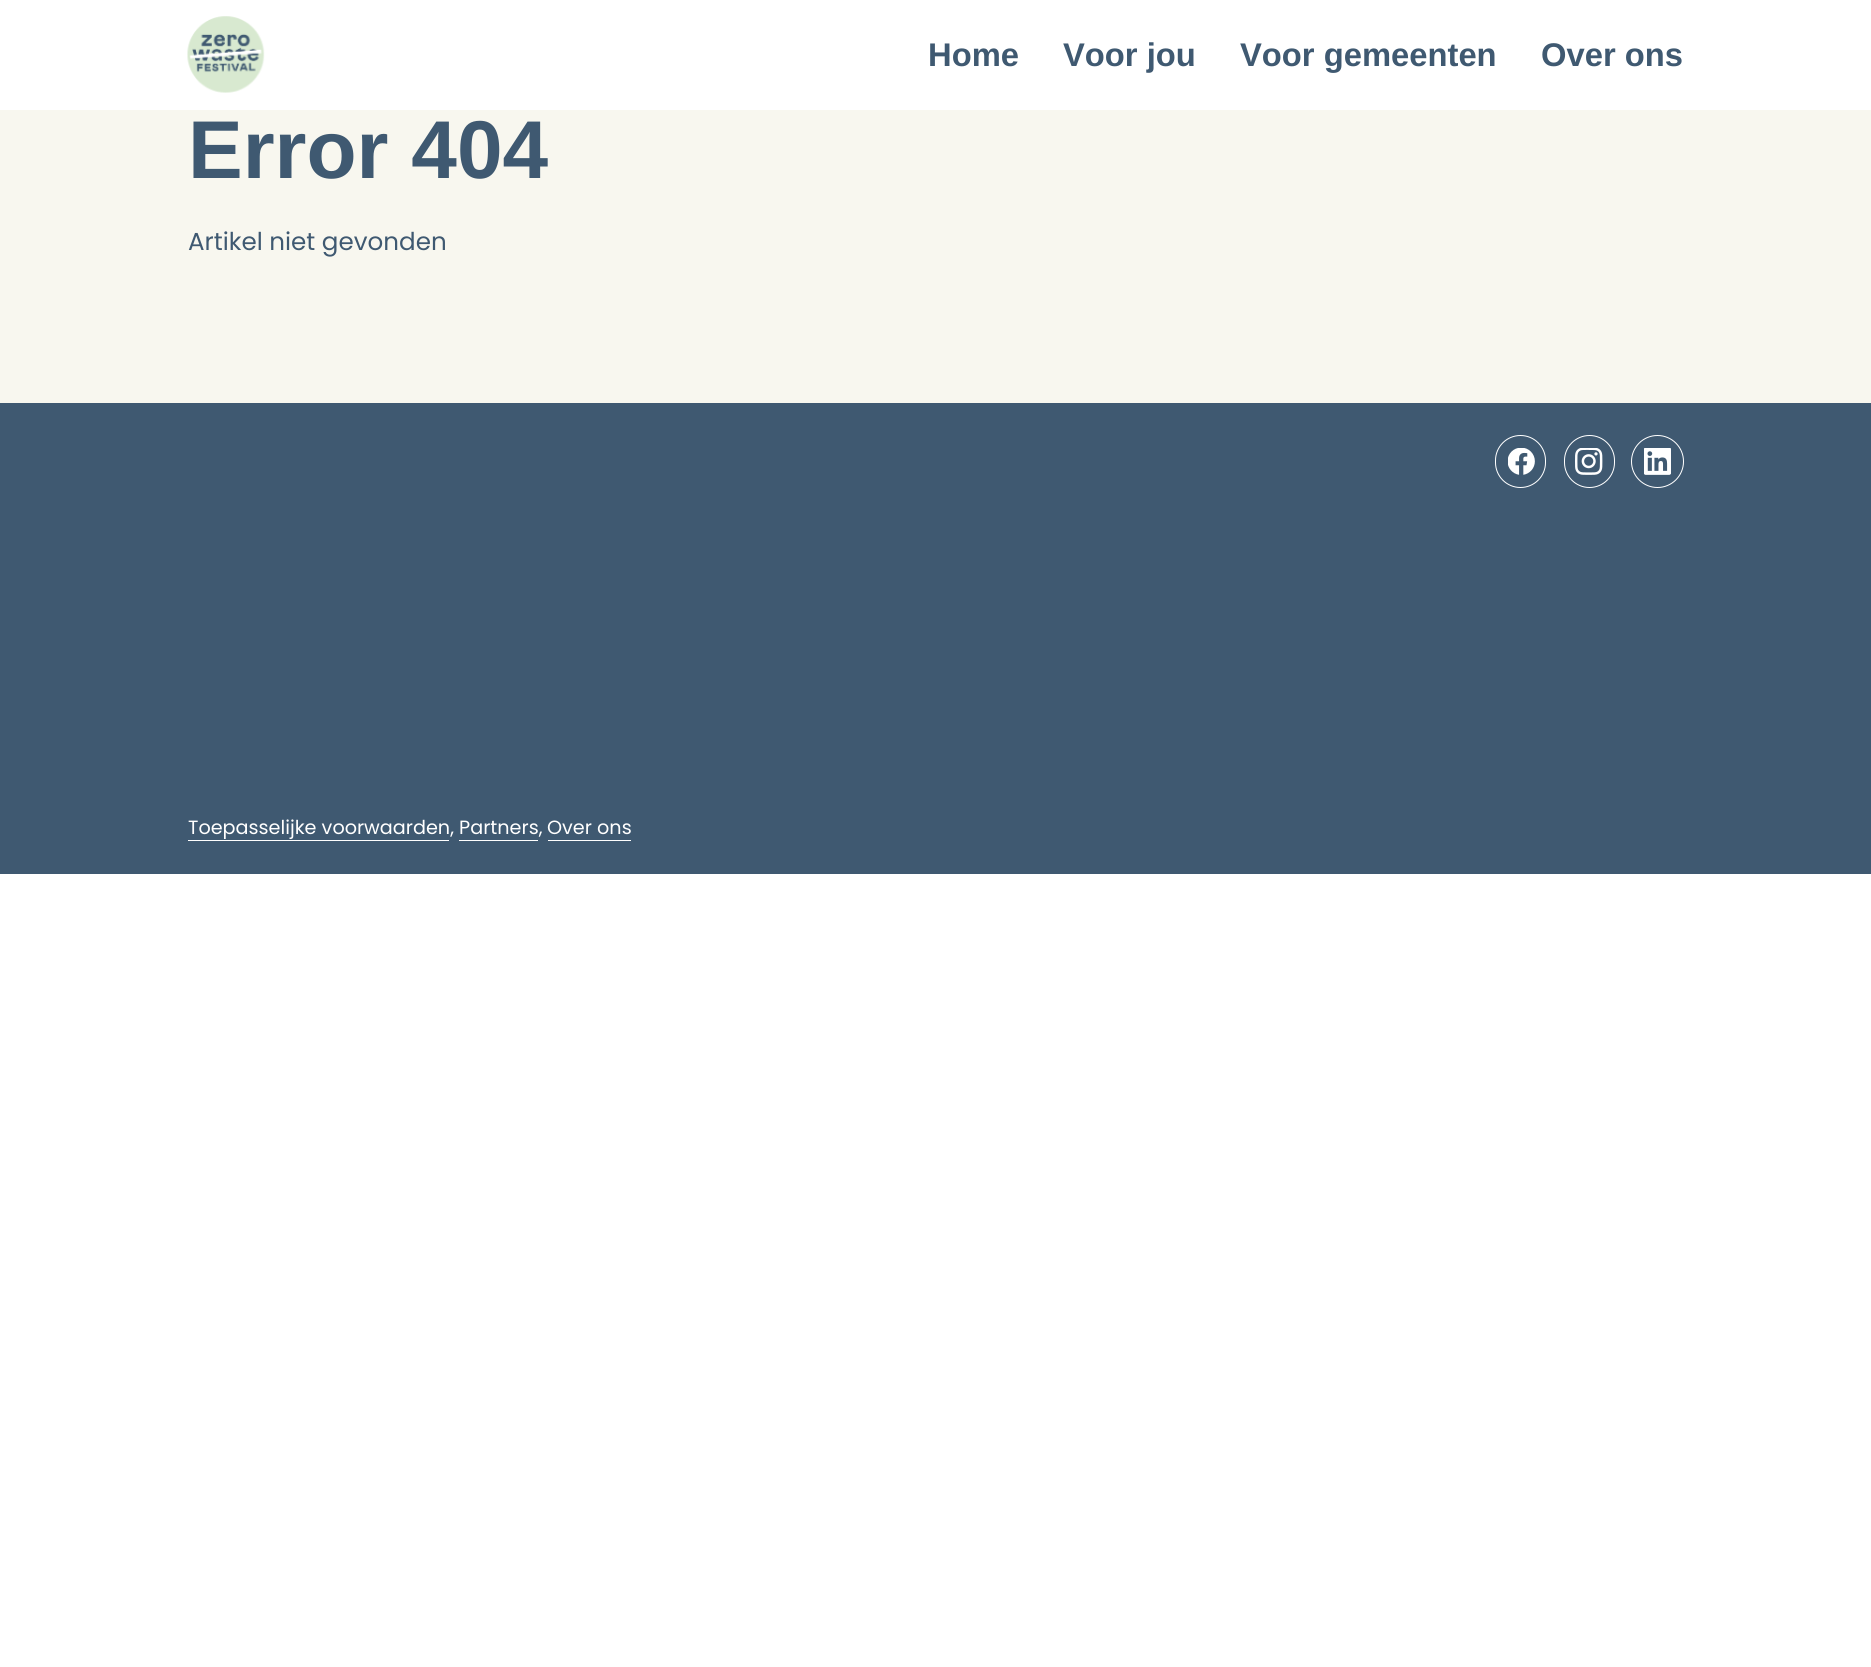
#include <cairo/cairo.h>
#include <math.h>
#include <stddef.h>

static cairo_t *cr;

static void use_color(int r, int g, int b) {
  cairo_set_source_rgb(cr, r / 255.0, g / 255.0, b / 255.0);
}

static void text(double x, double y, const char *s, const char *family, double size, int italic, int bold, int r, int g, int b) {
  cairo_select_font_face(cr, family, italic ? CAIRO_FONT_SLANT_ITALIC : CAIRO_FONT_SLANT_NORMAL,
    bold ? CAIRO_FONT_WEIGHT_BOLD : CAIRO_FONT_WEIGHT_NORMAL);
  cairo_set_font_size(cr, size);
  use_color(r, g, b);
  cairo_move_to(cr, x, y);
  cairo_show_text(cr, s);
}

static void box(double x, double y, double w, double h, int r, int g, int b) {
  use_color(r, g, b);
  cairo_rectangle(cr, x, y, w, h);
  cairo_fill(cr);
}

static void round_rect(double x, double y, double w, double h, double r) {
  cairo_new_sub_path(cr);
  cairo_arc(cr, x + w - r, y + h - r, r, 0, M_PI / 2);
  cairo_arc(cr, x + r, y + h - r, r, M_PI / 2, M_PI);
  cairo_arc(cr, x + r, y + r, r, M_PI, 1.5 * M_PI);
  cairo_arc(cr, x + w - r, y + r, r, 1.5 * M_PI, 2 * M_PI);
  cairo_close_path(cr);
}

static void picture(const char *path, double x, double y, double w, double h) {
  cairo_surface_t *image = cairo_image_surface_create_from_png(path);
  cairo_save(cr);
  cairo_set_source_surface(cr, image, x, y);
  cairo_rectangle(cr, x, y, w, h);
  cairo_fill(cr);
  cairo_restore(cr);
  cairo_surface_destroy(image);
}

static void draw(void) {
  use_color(255, 255, 255);
  cairo_paint(cr);
  picture("img_01.png", 187, 16, 78, 77);
  box(0, 110, 1871, 293, 248, 247, 239);
  box(0, 403, 1871, 471, 63, 89, 113);
  round_rect(1495.5, 435.5, 50, 52, 25);
  use_color(255, 255, 255);
  cairo_set_line_width(cr, 1);
  cairo_stroke(cr);
  picture("img_02.png", 1508, 448, 27, 27);
  round_rect(1564.5, 435.5, 50, 52, 25);
  cairo_stroke(cr);
  picture("img_03.png", 1575, 448, 28, 27);
  cairo_arc(cr, 1657.5, 461.5, 26, 0, 2 * M_PI);
  cairo_stroke(cr);
  picture("img_04.png", 1644, 448, 27, 27);
  box(188, 840, 261, 1, 255, 255, 255);
  box(548, 840, 83, 1, 255, 255, 255);
  box(459, 840, 79, 1, 255, 255, 255);
  text(928, 66, "Home", "Liberation Sans", 32.75, 0, 1, 63, 89, 113);
  text(1063, 66, "Voor jou", "Liberation Sans", 32.75, 0, 1, 63, 89, 113);
  text(1240, 66, "Voor gemeenten", "Liberation Sans", 32.75, 0, 1, 63, 89, 113);
  text(1541, 66, "Over ons", "Liberation Sans", 32.75, 0, 1, 63, 89, 113);
  text(188, 178, "Error 404", "Liberation Sans", 82, 0, 1, 63, 89, 113);
  text(188, 250, "Artikel niet gevonden", "Poppins", 24.6, 0, 0, 63, 89, 113);
  text(188, 834, "Toepasselijke voorwaarden, Partners,", "Poppins", 19.2, 0, 0, 255, 255, 255);
  text(547, 834, "Over ons", "Poppins", 19.2, 0, 0, 255, 255, 255);
}

int main(void) {
  cairo_surface_t *surface = cairo_image_surface_create(CAIRO_FORMAT_RGB24, 1871, 1667);
  cr = cairo_create(surface);
  cairo_font_options_t *options = cairo_font_options_create();
  cairo_font_options_set_hint_metrics(options, CAIRO_HINT_METRICS_OFF);
  cairo_font_options_set_hint_style(options, CAIRO_HINT_STYLE_NONE);
  cairo_set_font_options(cr, options);
  cairo_set_miter_limit(cr, 4);
  draw();
  cairo_surface_write_to_png(surface, "out.png");
  cairo_font_options_destroy(options);
  cairo_destroy(cr);
  cairo_surface_destroy(surface);
  return 0;
}
